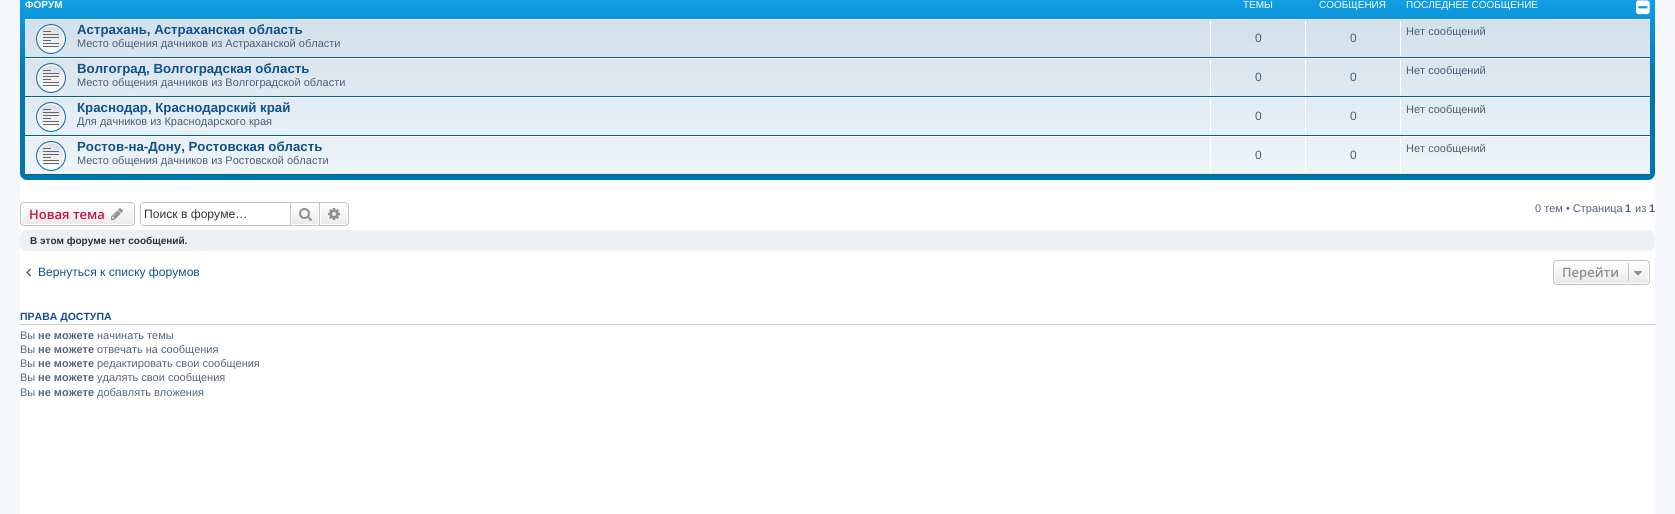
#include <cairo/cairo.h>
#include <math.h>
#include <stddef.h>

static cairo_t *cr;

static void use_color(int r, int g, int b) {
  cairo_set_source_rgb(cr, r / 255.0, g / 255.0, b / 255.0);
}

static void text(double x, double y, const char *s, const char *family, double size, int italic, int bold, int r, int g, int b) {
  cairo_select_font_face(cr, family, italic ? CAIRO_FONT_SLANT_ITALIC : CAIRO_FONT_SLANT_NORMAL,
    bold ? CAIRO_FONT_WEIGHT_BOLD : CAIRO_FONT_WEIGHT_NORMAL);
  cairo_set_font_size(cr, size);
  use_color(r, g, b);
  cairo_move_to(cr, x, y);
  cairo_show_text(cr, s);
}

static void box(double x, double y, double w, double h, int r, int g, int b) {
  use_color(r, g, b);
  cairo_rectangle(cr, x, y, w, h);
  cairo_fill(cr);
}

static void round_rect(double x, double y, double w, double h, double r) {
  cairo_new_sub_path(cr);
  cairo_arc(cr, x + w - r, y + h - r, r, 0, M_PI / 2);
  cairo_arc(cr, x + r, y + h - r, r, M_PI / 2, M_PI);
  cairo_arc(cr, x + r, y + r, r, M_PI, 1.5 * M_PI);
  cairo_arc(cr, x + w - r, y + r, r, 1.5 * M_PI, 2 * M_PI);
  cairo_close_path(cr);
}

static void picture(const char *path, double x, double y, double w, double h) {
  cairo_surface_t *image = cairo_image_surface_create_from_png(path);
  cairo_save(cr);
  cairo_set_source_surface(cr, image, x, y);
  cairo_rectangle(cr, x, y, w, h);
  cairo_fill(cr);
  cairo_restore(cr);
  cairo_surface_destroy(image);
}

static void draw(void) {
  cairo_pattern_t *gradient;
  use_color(245, 247, 250);
  cairo_paint(cr);
  box(20, 173, 1635, 341, 255, 255, 255);
  gradient = cairo_pattern_create_linear(838, -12, 838, 180);
  cairo_pattern_add_color_stop_rgba(gradient, 0, 0.416, 0.808, 1, 1);
  cairo_pattern_add_color_stop_rgba(gradient, 0.01, 0.071, 0.639, 0.922, 1);
  cairo_pattern_add_color_stop_rgba(gradient, 0.48, 0, 0.463, 0.694, 1);
  cairo_pattern_add_color_stop_rgba(gradient, 1, 0, 0.463, 0.694, 1);
  cairo_set_source(cr, gradient);
  cairo_pattern_destroy(gradient);
  round_rect(20, -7, 1635, 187, 7);
  cairo_fill(cr);
  picture("img_01.png", 1636, 0, 14, 15);
  gradient = cairo_pattern_create_linear(838, 19, 838, 175);
  cairo_pattern_add_color_stop_rgba(gradient, 0, 0.824, 0.878, 0.922, 1);
  cairo_pattern_add_color_stop_rgba(gradient, 1, 0.933, 0.961, 0.976, 1);
  cairo_set_source(cr, gradient);
  cairo_pattern_destroy(gradient);
  cairo_rectangle(cr, 25, 20, 1625, 154);
  cairo_fill(cr);
  box(25, 19, 1625, 1, 255, 255, 255);
  box(25, 57, 1625, 1, 0, 96, 143);
  picture("img_02.png", 36, 24, 30, 30);
  box(1210, 21, 1, 35, 255, 255, 255);
  box(1305, 21, 1, 35, 255, 255, 255);
  box(1400, 21, 1, 35, 255, 255, 255);
  box(25, 58, 1625, 1, 255, 255, 255);
  box(25, 96, 1625, 1, 0, 96, 143);
  picture("img_03.png", 36, 63, 30, 30);
  box(1210, 60, 1, 35, 255, 255, 255);
  box(1305, 60, 1, 35, 255, 255, 255);
  box(1400, 60, 1, 35, 255, 255, 255);
  box(25, 97, 1625, 1, 255, 255, 255);
  box(25, 135, 1625, 1, 0, 96, 143);
  picture("img_04.png", 36, 102, 30, 30);
  box(1210, 99, 1, 35, 255, 255, 255);
  box(1305, 99, 1, 35, 255, 255, 255);
  box(1400, 99, 1, 35, 255, 255, 255);
  box(25, 136, 1625, 1, 255, 255, 255);
  box(25, 174, 1625, 1, 0, 96, 143);
  picture("img_05.png", 36, 141, 30, 30);
  box(1210, 138, 1, 35, 255, 255, 255);
  box(1305, 138, 1, 35, 255, 255, 255);
  box(1400, 138, 1, 35, 255, 255, 255);
  cairo_save(cr);
  round_rect(20, 202, 115, 24, 4);
  cairo_clip(cr);
  gradient = cairo_pattern_create_linear(78, 203, 78, 225);
  cairo_pattern_add_color_stop_rgba(gradient, 0, 1, 1, 1, 1);
  cairo_pattern_add_color_stop_rgba(gradient, 1, 0.914, 0.914, 0.914, 1);
  cairo_set_source(cr, gradient);
  cairo_pattern_destroy(gradient);
  cairo_rectangle(cr, 20, 203, 115, 22);
  cairo_fill(cr);
  cairo_restore(cr);
  round_rect(21.5, 203.5, 112, 21, 2.5);
  cairo_set_line_width(cr, 1);
  cairo_stroke(cr);
  round_rect(20.5, 202.5, 114, 23, 3.5);
  use_color(199, 195, 191);
  cairo_stroke(cr);
  picture("img_06.png", 111, 208, 12, 12);
  cairo_set_fill_rule(cr, CAIRO_FILL_RULE_EVEN_ODD);
  cairo_new_path(cr);
  cairo_move_to(cr, 144, 202);
  cairo_line_to(cr, 290, 202);
  cairo_line_to(cr, 290, 226);
  cairo_line_to(cr, 144, 226);
  cairo_curve_to(cr, 142, 226, 140, 224, 140, 222);
  cairo_line_to(cr, 140, 206);
  cairo_curve_to(cr, 140, 204, 142, 202, 144, 202);
  cairo_close_path(cr);
  cairo_move_to(cr, 144, 203);
  cairo_line_to(cr, 290, 203);
  cairo_line_to(cr, 290, 225);
  cairo_line_to(cr, 144, 225);
  cairo_curve_to(cr, 142, 225, 141, 224, 141, 222);
  cairo_line_to(cr, 141, 206);
  cairo_curve_to(cr, 141, 204, 142, 203, 144, 203);
  cairo_close_path(cr);
  cairo_fill(cr);
  gradient = cairo_pattern_create_linear(305, 203, 305, 225);
  cairo_pattern_add_color_stop_rgba(gradient, 0, 1, 1, 1, 1);
  cairo_pattern_add_color_stop_rgba(gradient, 1, 0.914, 0.914, 0.914, 1);
  cairo_set_source(cr, gradient);
  cairo_pattern_destroy(gradient);
  cairo_rectangle(cr, 292, 206, 26, 18);
  cairo_fill(cr);
  cairo_rectangle(cr, 290.5, 202.5, 29, 23);
  use_color(199, 195, 191);
  cairo_stroke(cr);
  picture("img_07.png", 299, 208, 13, 13);
  gradient = cairo_pattern_create_linear(334, 203, 334, 225);
  cairo_pattern_add_color_stop_rgba(gradient, 0, 1, 1, 1, 1);
  cairo_pattern_add_color_stop_rgba(gradient, 1, 0.914, 0.914, 0.914, 1);
  cairo_set_source(cr, gradient);
  cairo_pattern_destroy(gradient);
  cairo_new_path(cr);
  cairo_move_to(cr, 320.5, 203.5);
  cairo_line_to(cr, 345, 203.5);
  cairo_curve_to(cr, 346.5, 203.5, 347.5, 204.5, 347.5, 206);
  cairo_line_to(cr, 347.5, 222);
  cairo_curve_to(cr, 347.5, 223.5, 346.5, 224.5, 345, 224.5);
  cairo_line_to(cr, 320.5, 224.5);
  cairo_close_path(cr);
  cairo_fill_preserve(cr);
  use_color(255, 255, 255);
  cairo_stroke(cr);
  use_color(199, 195, 191);
  cairo_new_path(cr);
  cairo_move_to(cr, 320, 202);
  cairo_line_to(cr, 345, 202);
  cairo_curve_to(cr, 347, 202, 349, 204, 349, 206);
  cairo_line_to(cr, 349, 222);
  cairo_curve_to(cr, 349, 224, 347, 226, 345, 226);
  cairo_line_to(cr, 320, 226);
  cairo_close_path(cr);
  cairo_move_to(cr, 320, 203);
  cairo_line_to(cr, 345, 203);
  cairo_curve_to(cr, 346.5, 203, 348, 204.5, 348, 206);
  cairo_line_to(cr, 348, 222);
  cairo_curve_to(cr, 348, 223.5, 346.5, 225, 345, 225);
  cairo_line_to(cr, 320, 225);
  cairo_close_path(cr);
  cairo_fill(cr);
  picture("img_08.png", 328, 208, 12, 12);
  use_color(236, 241, 243);
  round_rect(20, 230, 1635, 21, 7);
  cairo_fill(cr);
  picture("img_09.png", 26, 268, 5, 9);
  cairo_save(cr);
  cairo_set_fill_rule(cr, CAIRO_FILL_RULE_WINDING);
  round_rect(1553, 260, 97, 25, 4);
  cairo_clip(cr);
  gradient = cairo_pattern_create_linear(1602, 261, 1602, 284);
  cairo_pattern_add_color_stop_rgba(gradient, 0, 1, 1, 1, 1);
  cairo_pattern_add_color_stop_rgba(gradient, 1, 0.914, 0.914, 0.914, 1);
  cairo_set_source(cr, gradient);
  cairo_pattern_destroy(gradient);
  cairo_rectangle(cr, 1553, 261, 97, 23);
  cairo_fill(cr);
  cairo_restore(cr);
  round_rect(1554.5, 261.5, 94, 22, 2.5);
  use_color(255, 255, 255);
  cairo_stroke(cr);
  round_rect(1553.5, 260.5, 96, 24, 3.5);
  use_color(199, 195, 191);
  cairo_stroke(cr);
  box(1628, 263, 1, 18, 199, 195, 191);
  picture("img_10.png", 1634, 271, 8, 5);
  box(20, 324, 1635, 1, 204, 204, 204);
  text(25, 8, "ФОРУМ", "Liberation Sans", 10, 0, 1, 255, 255, 255);
  text(1243, 8, "ТЕМЫ", "Liberation Sans", 10, 0, 0, 255, 255, 255);
  text(1319, 8, "СООБЩЕНИЯ", "Liberation Sans", 10, 0, 0, 255, 255, 255);
  text(1406, 8, "ПОСЛЕДНЕЕ СООБЩЕНИЕ", "Liberation Sans", 10, 0, 0, 255, 255, 255);
  text(77, 34, "Астрахань, Астраханская область", "Liberation Sans", 13.25, 0, 1, 16, 82, 137);
  text(77, 47, "Место общения дачников из Астраханской области", "Liberation Sans", 11, 0, 0, 76, 93, 119);
  text(1255, 42, "0", "Liberation Sans", 12, 0, 0, 76, 93, 119);
  text(1350, 42, "0", "Liberation Sans", 12, 0, 0, 76, 93, 119);
  text(1406, 35, "Нет сообщений", "Liberation Sans", 11, 0, 0, 76, 93, 119);
  text(77, 73, "Волгоград, Волгоградская область", "Liberation Sans", 13.25, 0, 1, 16, 82, 137);
  text(77, 86, "Место общения дачников из Волгоградской области", "Liberation Sans", 11, 0, 0, 76, 93, 119);
  text(1255, 81, "0", "Liberation Sans", 12, 0, 0, 76, 93, 119);
  text(1350, 81, "0", "Liberation Sans", 12, 0, 0, 76, 93, 119);
  text(1406, 74, "Нет сообщений", "Liberation Sans", 11, 0, 0, 76, 93, 119);
  text(77, 112, "Краснодар, Краснодарский край", "Liberation Sans", 13.25, 0, 1, 16, 82, 137);
  text(77, 125, "Для дачников из Краснодарского края", "Liberation Sans", 11, 0, 0, 76, 93, 119);
  text(1255, 120, "0", "Liberation Sans", 12, 0, 0, 76, 93, 119);
  text(1350, 120, "0", "Liberation Sans", 12, 0, 0, 76, 93, 119);
  text(1406, 113, "Нет сообщений", "Liberation Sans", 11, 0, 0, 76, 93, 119);
  text(77, 151, "Ростов-на-Дону, Ростовская область", "Liberation Sans", 13.25, 0, 1, 16, 82, 137);
  text(77, 164, "Место общения дачников из Ростовской области", "Liberation Sans", 11, 0, 0, 76, 93, 119);
  text(1255, 159, "0", "Liberation Sans", 12, 0, 0, 76, 93, 119);
  text(1350, 159, "0", "Liberation Sans", 12, 0, 0, 76, 93, 119);
  text(1406, 152, "Нет сообщений", "Liberation Sans", 11, 0, 0, 76, 93, 119);
  text(29, 219, "Новая тема", "Open Sans SemiBold", 13, 0, 0, 211, 17, 65);
  text(144, 218, "Поиск в форуме…", "Liberation Sans", 12.1, 0, 0, 51, 51, 51);
  text(1535, 212, "0 тем • Страница", "Liberation Sans", 11, 0, 0, 83, 100, 130);
  text(1625, 212, "1", "Liberation Sans", 11, 0, 1, 83, 100, 130);
  text(1635, 212, "из", "Liberation Sans", 11, 0, 0, 83, 100, 130);
  text(1649, 212, "1", "Liberation Sans", 11, 0, 1, 83, 100, 130);
  text(30, 244, "В этом форуме нет сообщений.", "Liberation Sans", 10, 0, 1, 40, 49, 63);
  text(38, 276, "Вернуться к списку форумов", "Liberation Sans", 12.1, 0, 0, 16, 82, 137);
  text(1562, 277, "Перейти", "Open Sans SemiBold", 13, 0, 0, 143, 143, 143);
  text(20, 320, "ПРАВА ДОСТУПА", "Liberation Sans", 10.5, 0, 1, 17, 80, 152);
  text(20, 339, "Вы", "Liberation Sans", 11, 0, 0, 83, 100, 130);
  text(38, 339, "не можете", "Liberation Sans", 11, 0, 1, 83, 100, 130);
  text(97, 339, "начинать темы", "Liberation Sans", 11, 0, 0, 83, 100, 130);
  text(20, 353, "Вы", "Liberation Sans", 11, 0, 0, 83, 100, 130);
  text(38, 353, "не можете", "Liberation Sans", 11, 0, 1, 83, 100, 130);
  text(97, 353, "отвечать на сообщения", "Liberation Sans", 11, 0, 0, 83, 100, 130);
  text(20, 367, "Вы", "Liberation Sans", 11, 0, 0, 83, 100, 130);
  text(38, 367, "не можете", "Liberation Sans", 11, 0, 1, 83, 100, 130);
  text(97, 367, "редактировать свои сообщения", "Liberation Sans", 11, 0, 0, 83, 100, 130);
  text(20, 381, "Вы", "Liberation Sans", 11, 0, 0, 83, 100, 130);
  text(38, 381, "не можете", "Liberation Sans", 11, 0, 1, 83, 100, 130);
  text(97, 381, "удалять свои сообщения", "Liberation Sans", 11, 0, 0, 83, 100, 130);
  text(20, 396, "Вы", "Liberation Sans", 11, 0, 0, 83, 100, 130);
  text(38, 396, "не можете", "Liberation Sans", 11, 0, 1, 83, 100, 130);
  text(97, 396, "добавлять вложения", "Liberation Sans", 11, 0, 0, 83, 100, 130);
}

int main(void) {
  cairo_surface_t *surface = cairo_image_surface_create(CAIRO_FORMAT_RGB24, 1675, 514);
  cr = cairo_create(surface);
  cairo_font_options_t *options = cairo_font_options_create();
  cairo_font_options_set_hint_metrics(options, CAIRO_HINT_METRICS_OFF);
  cairo_font_options_set_hint_style(options, CAIRO_HINT_STYLE_NONE);
  cairo_set_font_options(cr, options);
  cairo_set_miter_limit(cr, 4);
  draw();
  cairo_surface_write_to_png(surface, "out.png");
  cairo_font_options_destroy(options);
  cairo_destroy(cr);
  cairo_surface_destroy(surface);
  return 0;
}
